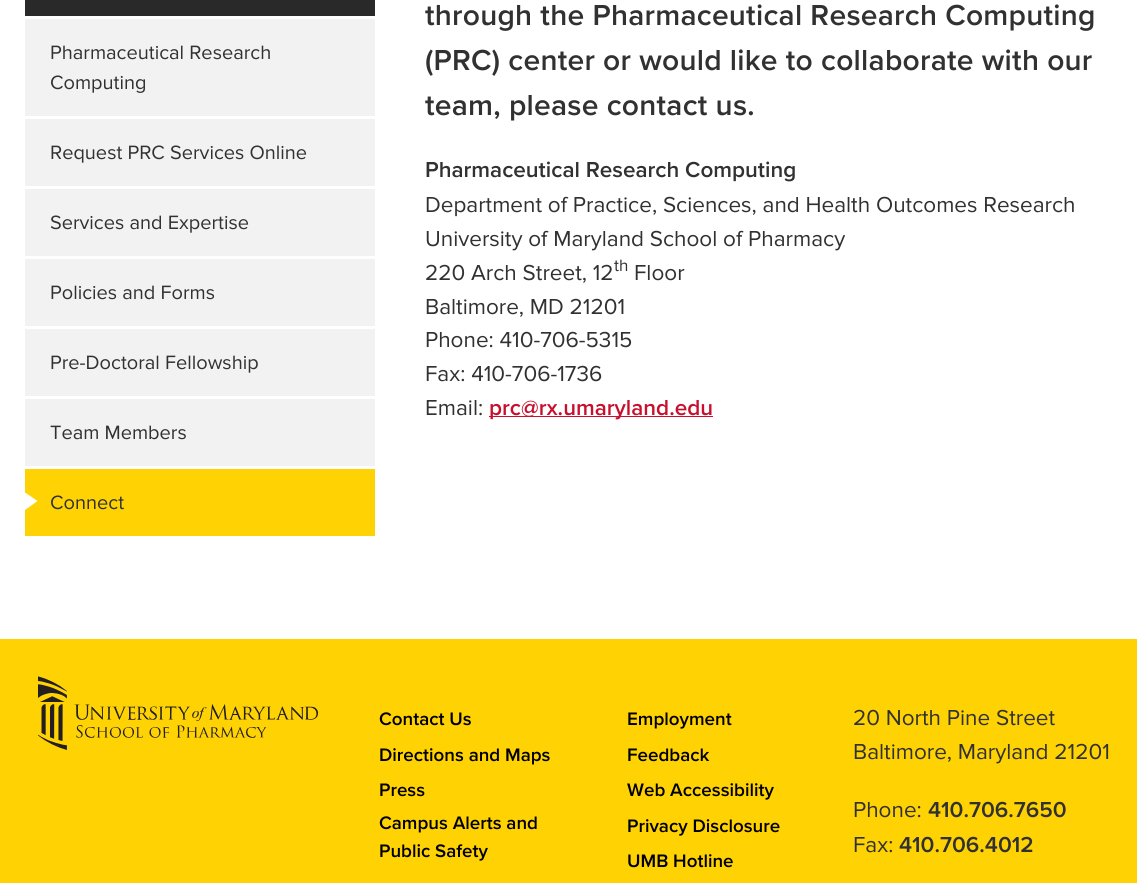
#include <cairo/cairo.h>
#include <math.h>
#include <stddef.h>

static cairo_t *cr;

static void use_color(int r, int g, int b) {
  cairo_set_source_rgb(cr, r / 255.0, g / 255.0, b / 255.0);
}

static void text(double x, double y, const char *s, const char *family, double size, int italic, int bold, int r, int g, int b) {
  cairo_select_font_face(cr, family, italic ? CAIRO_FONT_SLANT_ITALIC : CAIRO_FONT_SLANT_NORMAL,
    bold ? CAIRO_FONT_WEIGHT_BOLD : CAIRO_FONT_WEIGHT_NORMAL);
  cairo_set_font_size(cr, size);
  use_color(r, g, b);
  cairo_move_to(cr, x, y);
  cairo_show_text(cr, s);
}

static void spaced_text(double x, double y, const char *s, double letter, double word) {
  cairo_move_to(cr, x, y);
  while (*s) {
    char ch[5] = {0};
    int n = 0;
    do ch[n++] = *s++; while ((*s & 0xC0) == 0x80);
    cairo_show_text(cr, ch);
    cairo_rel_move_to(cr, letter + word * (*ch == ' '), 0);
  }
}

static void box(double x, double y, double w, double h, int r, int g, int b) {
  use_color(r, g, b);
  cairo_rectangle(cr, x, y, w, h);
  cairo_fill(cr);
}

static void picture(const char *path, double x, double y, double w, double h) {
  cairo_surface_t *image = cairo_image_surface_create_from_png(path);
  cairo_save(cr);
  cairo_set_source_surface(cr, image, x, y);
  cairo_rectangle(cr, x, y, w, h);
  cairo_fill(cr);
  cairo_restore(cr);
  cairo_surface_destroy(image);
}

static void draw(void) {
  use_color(255, 255, 255);
  cairo_paint(cr);
  box(25, 0, 350, 16, 41, 41, 41);
  box(25, 19, 350, 97, 242, 242, 242);
  box(25, 119, 350, 67, 242, 242, 242);
  box(25, 189, 350, 67, 242, 242, 242);
  box(25, 259, 350, 67, 242, 242, 242);
  box(25, 329, 350, 67, 242, 242, 242);
  box(25, 399, 350, 67, 242, 242, 242);
  box(25, 469, 350, 67, 255, 210, 4);
  use_color(255, 255, 255);
  cairo_new_path(cr);
  cairo_move_to(cr, 25, 510);
  cairo_line_to(cr, 25, 492.5);
  cairo_line_to(cr, 37.5, 501);
  cairo_close_path(cr);
  cairo_fill(cr);
  box(489, 416, 224, 1, 200, 16, 46);
  box(0, 639, 1137, 244, 255, 210, 4);
  picture("img_01.png", 38, 676, 281, 74);
  text(50, 59, "Pharmaceutical Research", "Proxima Nova", 20, 0, 0, 49, 49, 49);
  text(50, 89, "Computing", "Proxima Nova", 20, 0, 0, 49, 49, 49);
  text(50, 159, "Request PRC Services Online", "Proxima Nova", 20, 0, 0, 49, 49, 49);
  text(50, 229, "Services and Expertise", "Proxima Nova", 20, 0, 0, 49, 49, 49);
  text(50, 299, "Policies and Forms", "Proxima Nova", 20, 0, 0, 49, 49, 49);
  text(50, 369, "Pre-Doctoral Fellowship", "Proxima Nova", 20, 0, 0, 49, 49, 49);
  text(50, 439, "Team Members", "Proxima Nova", 20, 0, 0, 49, 49, 49);
  text(50, 509, "Connect", "Proxima Nova", 20, 0, 0, 49, 49, 49);
  cairo_select_font_face(cr, "Proxima Nova SemiBold", CAIRO_FONT_SLANT_NORMAL, CAIRO_FONT_WEIGHT_NORMAL);
  cairo_set_font_size(cr, 30);
  spaced_text(425, 25, "through the Pharmaceutical Research Computing", 0.25, 0);
  spaced_text(425, 70, "(PRC) center or would like to collaborate with our", 0.25, 0);
  spaced_text(425, 115, "team, please contact us.", 0.25, 0);
  text(425, 177, "Pharmaceutical Research Computing", "Proxima Nova SemiBold", 22.5, 0, 0, 49, 49, 49);
  text(425, 212, "Department of Practice, Sciences, and Health Outcomes Research", "Proxima Nova", 22.5, 0, 0, 49, 49, 49);
  text(425, 246, "University of Maryland School of Pharmacy", "Proxima Nova", 22.5, 0, 0, 49, 49, 49);
  text(425, 280, "220 Arch Street, 12", "Proxima Nova", 22.5, 0, 0, 49, 49, 49);
  text(614, 271, "th", "Proxima Nova", 17, 0, 0, 49, 49, 49);
  text(634, 280, "Floor", "Proxima Nova", 22.5, 0, 0, 49, 49, 49);
  text(425, 314, "Baltimore, MD 21201", "Proxima Nova", 22.5, 0, 0, 49, 49, 49);
  text(425, 347, "Phone: 410-706-5315", "Proxima Nova", 22.5, 0, 0, 49, 49, 49);
  text(425, 381, "Fax: 410-706-1736", "Proxima Nova", 22.5, 0, 0, 49, 49, 49);
  text(425, 415, "Email:", "Proxima Nova", 22.5, 0, 0, 49, 49, 49);
  text(489, 415, "prc@rx.umaryland.edu", "Proxima Nova SemiBold", 22.5, 0, 0, 200, 16, 46);
  text(379, 725, "Contact Us", "Proxima Nova SemiBold", 18.75, 0, 0, 0, 0, 0);
  text(627, 725, "Employment", "Proxima Nova SemiBold", 18.75, 0, 0, 0, 0, 0);
  text(379, 761, "Directions and Maps", "Proxima Nova SemiBold", 18.75, 0, 0, 0, 0, 0);
  text(627, 761, "Feedback", "Proxima Nova SemiBold", 18.75, 0, 0, 0, 0, 0);
  text(379, 796, "Press", "Proxima Nova SemiBold", 18.75, 0, 0, 0, 0, 0);
  text(627, 796, "Web Accessibility", "Proxima Nova SemiBold", 18.75, 0, 0, 0, 0, 0);
  text(379, 829, "Campus Alerts and", "Proxima Nova SemiBold", 18.75, 0, 0, 0, 0, 0);
  text(379, 857, "Public Safety", "Proxima Nova SemiBold", 18.75, 0, 0, 0, 0, 0);
  text(627, 832, "Privacy Disclosure", "Proxima Nova SemiBold", 18.75, 0, 0, 0, 0, 0);
  text(627, 867, "UMB Hotline", "Proxima Nova SemiBold", 18.75, 0, 0, 0, 0, 0);
  text(853, 725, "20 North Pine Street", "Proxima Nova", 22.5, 0, 0, 49, 49, 49);
  text(853, 759, "Baltimore, Maryland 21201", "Proxima Nova", 22.5, 0, 0, 49, 49, 49);
  text(853, 817, "Phone:", "Proxima Nova", 22.5, 0, 0, 49, 49, 49);
  text(928, 817, "410.706.7650", "Proxima Nova SemiBold", 22.5, 0, 0, 49, 49, 49);
  text(853, 852, "Fax:", "Proxima Nova", 22.5, 0, 0, 49, 49, 49);
  text(899, 852, "410.706.4012", "Proxima Nova SemiBold", 22.5, 0, 0, 49, 49, 49);
}

int main(void) {
  cairo_surface_t *surface = cairo_image_surface_create(CAIRO_FORMAT_RGB24, 1137, 883);
  cr = cairo_create(surface);
  cairo_font_options_t *options = cairo_font_options_create();
  cairo_font_options_set_hint_metrics(options, CAIRO_HINT_METRICS_OFF);
  cairo_font_options_set_hint_style(options, CAIRO_HINT_STYLE_NONE);
  cairo_set_font_options(cr, options);
  cairo_set_miter_limit(cr, 4);
  draw();
  cairo_surface_write_to_png(surface, "out.png");
  cairo_font_options_destroy(options);
  cairo_destroy(cr);
  cairo_surface_destroy(surface);
  return 0;
}
